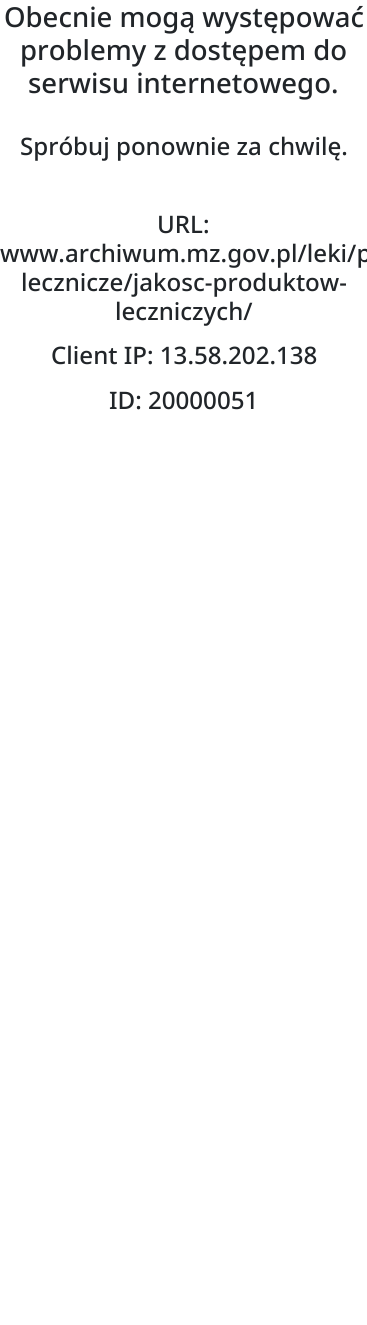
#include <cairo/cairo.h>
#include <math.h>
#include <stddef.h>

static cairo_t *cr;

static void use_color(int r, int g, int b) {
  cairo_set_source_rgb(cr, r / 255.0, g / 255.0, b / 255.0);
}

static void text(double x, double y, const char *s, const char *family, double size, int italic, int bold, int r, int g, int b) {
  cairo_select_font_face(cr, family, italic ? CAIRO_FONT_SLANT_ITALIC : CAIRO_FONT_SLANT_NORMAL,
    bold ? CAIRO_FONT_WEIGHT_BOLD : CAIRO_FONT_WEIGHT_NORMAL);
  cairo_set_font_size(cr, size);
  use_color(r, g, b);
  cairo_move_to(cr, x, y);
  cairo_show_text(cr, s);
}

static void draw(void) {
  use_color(255, 255, 255);
  cairo_paint(cr);
  text(4, 27, "Obecnie mogą występować", "Noto Sans Medium", 27.5, 0, 0, 33, 37, 41);
  text(20, 60, "problemy z dostępem do", "Noto Sans Medium", 27.5, 0, 0, 33, 37, 41);
  text(28, 93, "serwisu internetowego.", "Noto Sans Medium", 27.5, 0, 0, 33, 37, 41);
  text(20, 155, "Spróbuj ponownie za chwilę.", "Noto Sans Medium", 24.1, 0, 0, 33, 37, 41);
  text(157, 233, "URL:", "Noto Sans Medium", 24.1, 0, 0, 33, 37, 41);
  text(0, 262, "www.archiwum.mz.gov.pl/leki/p", "Noto Sans Medium", 24.1, 0, 0, 33, 37, 41);
  text(21, 291, "lecznicze/jakosc-produktow-", "Noto Sans Medium", 24.1, 0, 0, 33, 37, 41);
  text(115, 320, "leczniczych/", "Noto Sans Medium", 24.1, 0, 0, 33, 37, 41);
  text(51, 364, "Client IP: 13.58.202.138", "Noto Sans Medium", 24.1, 0, 0, 33, 37, 41);
  text(109, 409, "ID: 20000051", "Noto Sans Medium", 24.1, 0, 0, 33, 37, 41);
}

int main(void) {
  cairo_surface_t *surface = cairo_image_surface_create(CAIRO_FORMAT_RGB24, 367, 1325);
  cr = cairo_create(surface);
  cairo_font_options_t *options = cairo_font_options_create();
  cairo_font_options_set_hint_metrics(options, CAIRO_HINT_METRICS_OFF);
  cairo_font_options_set_hint_style(options, CAIRO_HINT_STYLE_NONE);
  cairo_set_font_options(cr, options);
  cairo_set_miter_limit(cr, 4);
  draw();
  cairo_surface_write_to_png(surface, "out.png");
  cairo_font_options_destroy(options);
  cairo_destroy(cr);
  cairo_surface_destroy(surface);
  return 0;
}
